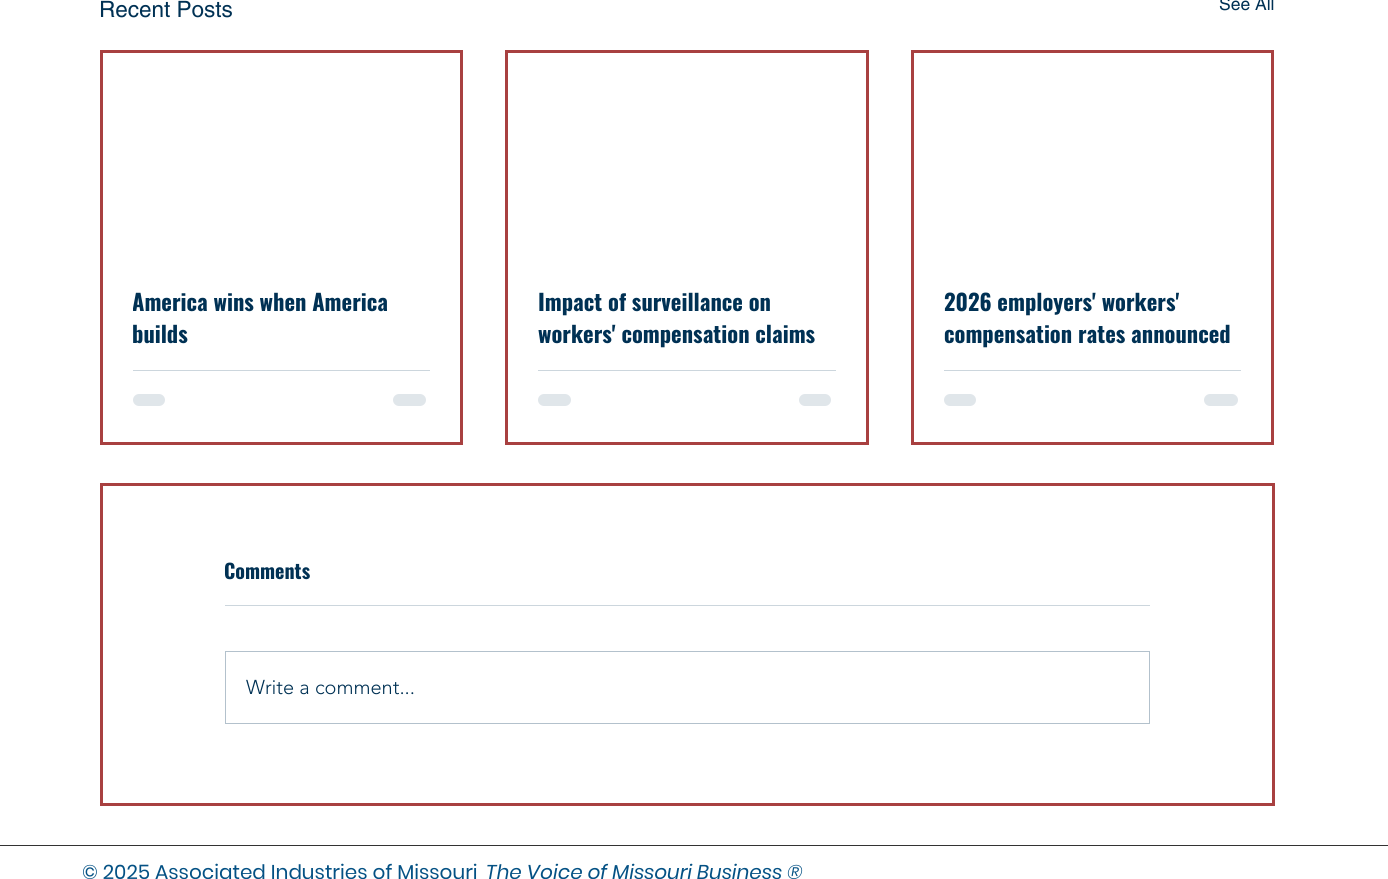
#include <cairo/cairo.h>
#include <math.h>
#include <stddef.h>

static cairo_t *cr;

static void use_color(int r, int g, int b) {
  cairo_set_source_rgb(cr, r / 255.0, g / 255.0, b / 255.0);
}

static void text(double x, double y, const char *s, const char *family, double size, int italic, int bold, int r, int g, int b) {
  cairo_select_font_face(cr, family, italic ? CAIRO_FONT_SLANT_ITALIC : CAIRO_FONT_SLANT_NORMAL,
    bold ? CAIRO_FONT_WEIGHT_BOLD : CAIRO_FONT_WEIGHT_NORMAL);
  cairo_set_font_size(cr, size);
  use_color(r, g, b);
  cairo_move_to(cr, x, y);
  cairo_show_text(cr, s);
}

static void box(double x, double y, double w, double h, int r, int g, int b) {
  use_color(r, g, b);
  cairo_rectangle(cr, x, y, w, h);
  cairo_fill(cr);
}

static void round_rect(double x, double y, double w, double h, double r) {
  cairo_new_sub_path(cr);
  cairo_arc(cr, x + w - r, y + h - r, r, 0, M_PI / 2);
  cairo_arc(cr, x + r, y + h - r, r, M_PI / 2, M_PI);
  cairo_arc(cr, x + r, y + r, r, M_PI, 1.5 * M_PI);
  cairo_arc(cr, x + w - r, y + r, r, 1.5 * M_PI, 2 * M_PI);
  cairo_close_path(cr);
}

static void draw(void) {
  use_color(255, 255, 255);
  cairo_paint(cr);
  cairo_rectangle(cr, 101.5, 51.5, 360, 392);
  use_color(168, 64, 64);
  cairo_set_line_width(cr, 3);
  cairo_stroke(cr);
  box(133, 370, 297, 1, 204, 214, 221);
  use_color(224, 230, 234);
  round_rect(133, 394, 32, 12, 6);
  cairo_fill(cr);
  round_rect(393, 394, 33, 12, 6);
  cairo_fill(cr);
  cairo_rectangle(cr, 506.5, 51.5, 361, 392);
  use_color(168, 64, 64);
  cairo_stroke(cr);
  box(538, 370, 298, 1, 204, 214, 221);
  use_color(224, 230, 234);
  round_rect(538, 394, 33, 12, 6);
  cairo_fill(cr);
  round_rect(799, 394, 32, 12, 6);
  cairo_fill(cr);
  cairo_rectangle(cr, 912.5, 51.5, 360, 392);
  use_color(168, 64, 64);
  cairo_stroke(cr);
  box(944, 370, 297, 1, 204, 214, 221);
  use_color(224, 230, 234);
  round_rect(944, 394, 32, 12, 6);
  cairo_fill(cr);
  round_rect(1204, 394, 34, 12, 6);
  cairo_fill(cr);
  cairo_rectangle(cr, 101.5, 484.5, 1172, 320);
  use_color(168, 64, 64);
  cairo_stroke(cr);
  box(225, 605, 925, 1, 204, 214, 221);
  cairo_rectangle(cr, 225.5, 651.5, 924, 72);
  use_color(179, 193, 204);
  cairo_set_line_width(cr, 1);
  cairo_stroke(cr);
  box(0, 845, 1388, 1, 51, 51, 51);
  text(99, 17, "Recent Posts", "helvetica", 22.5, 0, 0, 0, 49, 84);
  text(1219, 10, "See All", "helvetica", 17.5, 0, 0, 0, 49, 84);
  cairo_save(cr);
  cairo_rectangle(cr, 133, 284, 297, 65);
  cairo_clip(cr);
  text(132, 311, "America wins when America", "Oswald", 22.5, 0, 1, 0, 49, 84);
  cairo_restore(cr);
  text(132, 343, "builds", "Oswald", 22.5, 0, 1, 0, 49, 84);
  text(538, 311, "Impact of surveillance on", "Oswald", 22.5, 0, 1, 0, 49, 84);
  text(538, 343, "workers' compensation claims", "Oswald", 22.5, 0, 1, 0, 49, 84);
  text(944, 311, "2026 employers' workers'", "Oswald", 22.5, 0, 1, 0, 49, 84);
  text(944, 343, "compensation rates announced", "Oswald", 22.5, 0, 1, 0, 49, 84);
  text(224, 579, "Comments", "Oswald", 20, 0, 1, 0, 49, 84);
  text(246, 694, "Write a comment...", "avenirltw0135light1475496 Light", 20, 0, 0, 0, 49, 84);
  text(82, 879, "© 2025 Associated Industries of Missouri", "Poppins", 20, 0, 0, 4, 81, 132);
  text(486, 879, "The Voice of Missouri Business ®", "Poppins", 20, 1, 0, 4, 81, 132);
}

int main(void) {
  cairo_surface_t *surface = cairo_image_surface_create(CAIRO_FORMAT_RGB24, 1388, 879);
  cr = cairo_create(surface);
  cairo_font_options_t *options = cairo_font_options_create();
  cairo_font_options_set_hint_metrics(options, CAIRO_HINT_METRICS_OFF);
  cairo_font_options_set_hint_style(options, CAIRO_HINT_STYLE_NONE);
  cairo_set_font_options(cr, options);
  cairo_set_miter_limit(cr, 4);
  draw();
  cairo_surface_write_to_png(surface, "out.png");
  cairo_font_options_destroy(options);
  cairo_destroy(cr);
  cairo_surface_destroy(surface);
  return 0;
}
